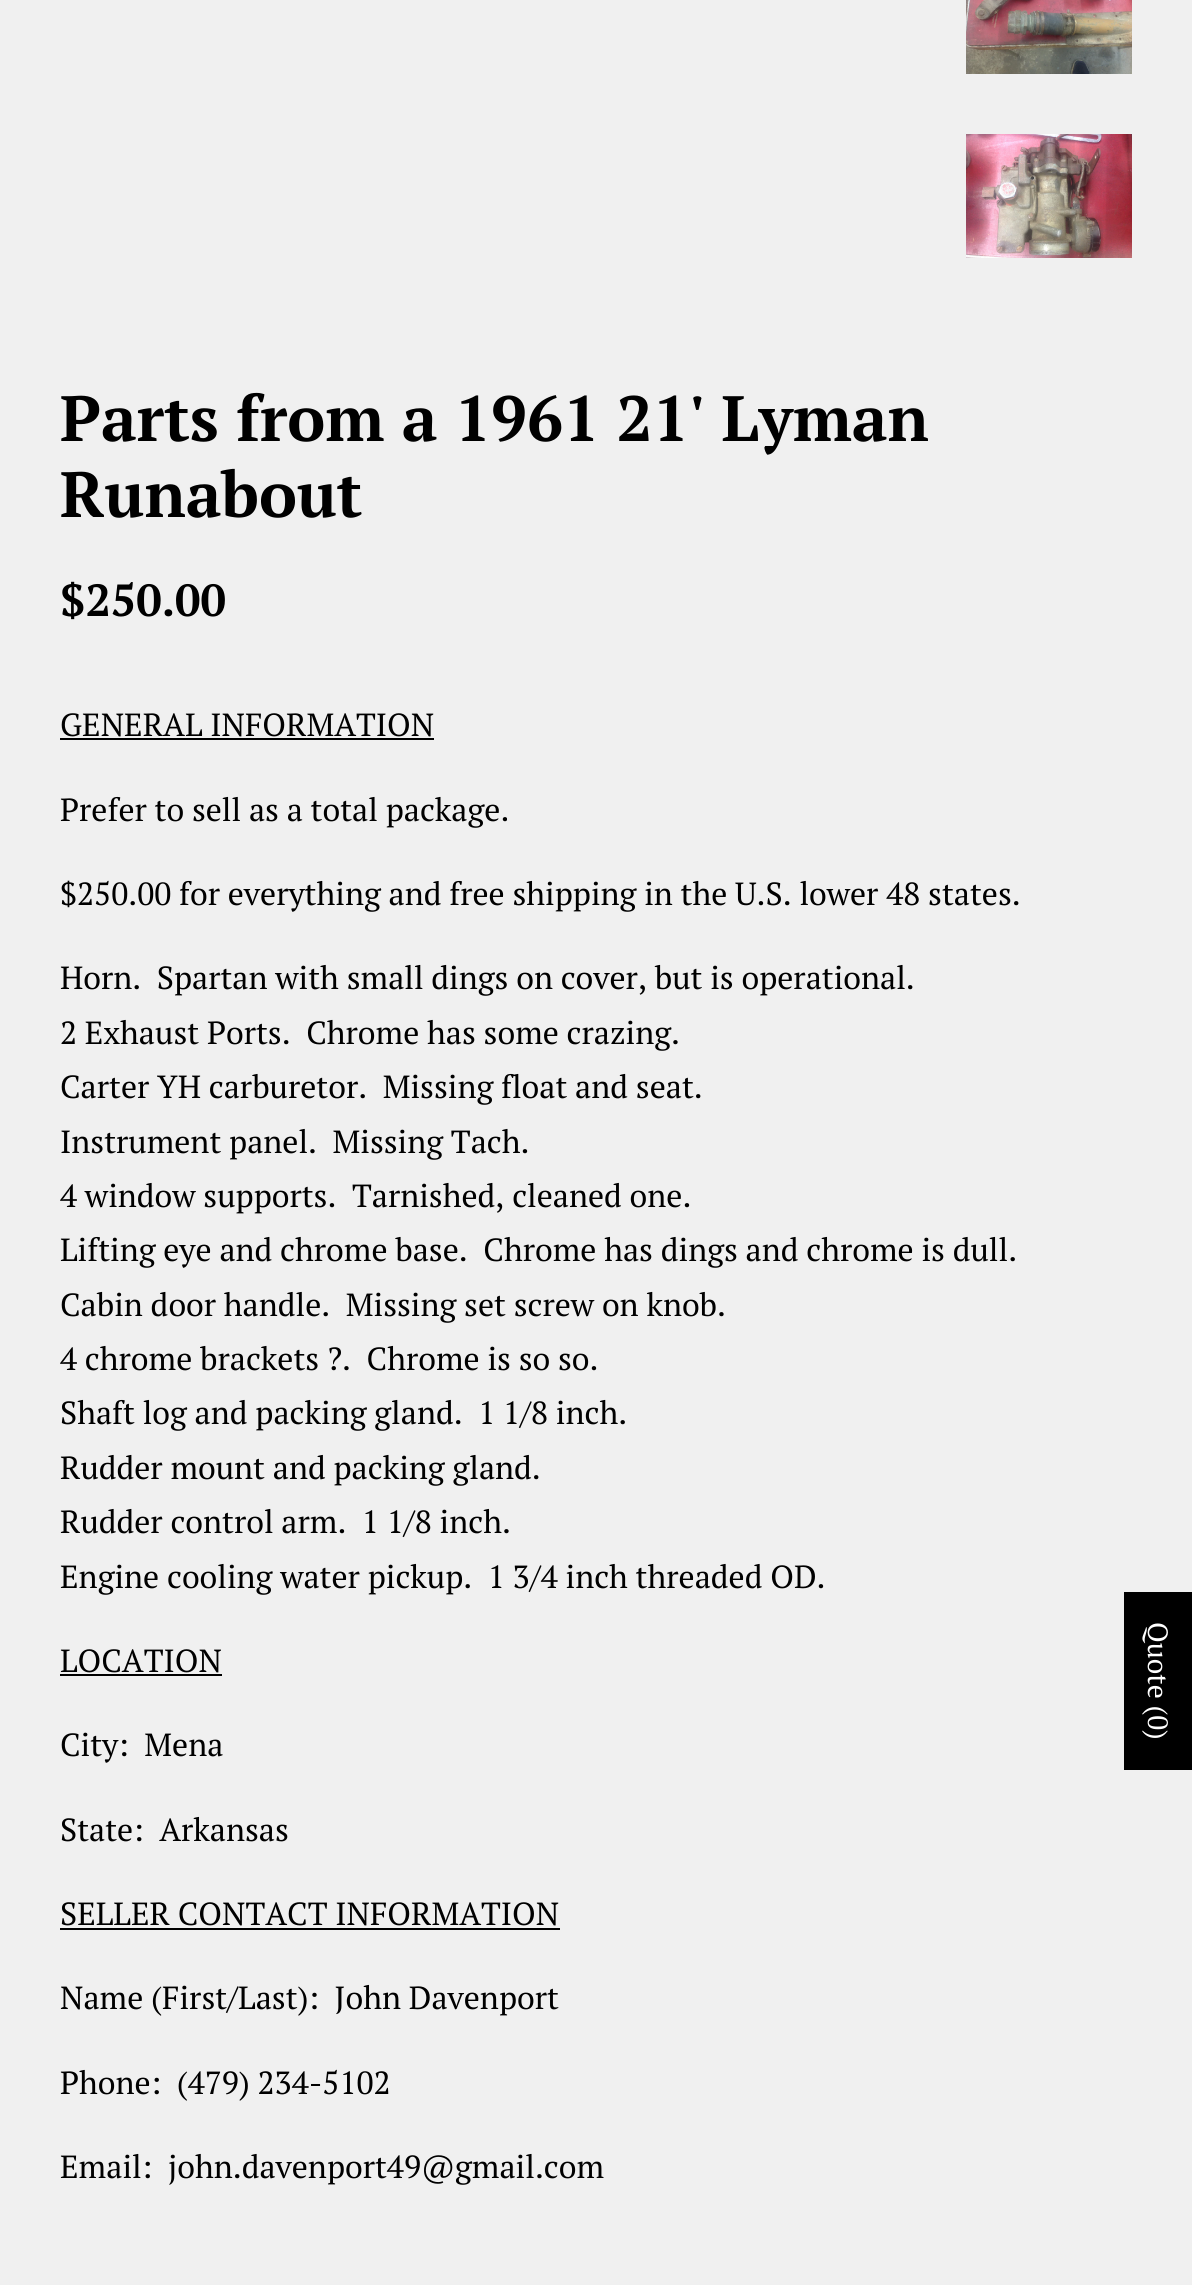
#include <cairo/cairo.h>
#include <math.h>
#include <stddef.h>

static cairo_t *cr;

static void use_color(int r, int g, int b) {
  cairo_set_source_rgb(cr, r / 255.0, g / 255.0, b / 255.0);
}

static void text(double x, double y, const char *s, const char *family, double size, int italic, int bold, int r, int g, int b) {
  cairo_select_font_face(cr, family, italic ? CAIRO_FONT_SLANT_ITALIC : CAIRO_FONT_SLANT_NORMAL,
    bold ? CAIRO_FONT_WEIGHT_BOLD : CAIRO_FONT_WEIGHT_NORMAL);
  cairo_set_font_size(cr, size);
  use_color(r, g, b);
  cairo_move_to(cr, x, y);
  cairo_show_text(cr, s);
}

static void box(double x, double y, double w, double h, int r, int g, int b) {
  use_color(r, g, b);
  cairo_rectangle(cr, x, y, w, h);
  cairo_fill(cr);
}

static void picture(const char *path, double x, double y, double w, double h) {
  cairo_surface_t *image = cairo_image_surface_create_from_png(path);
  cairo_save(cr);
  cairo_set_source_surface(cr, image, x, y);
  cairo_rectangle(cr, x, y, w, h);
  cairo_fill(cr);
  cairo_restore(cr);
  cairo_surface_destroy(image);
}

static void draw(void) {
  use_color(240, 240, 240);
  cairo_paint(cr);
  picture("img_01.png", 966, 0, 166, 74);
  picture("img_02.png", 966, 134, 166, 124);
  box(60, 738, 374, 2, 0, 0, 0);
  box(60, 1674, 162, 2, 0, 0, 0);
  box(60, 1928, 500, 2, 0, 0, 0);
  box(1124, 1592, 68, 178, 0, 0, 0);
  text(60, 441, "Parts from a 1961 21' Lyman", "PT Serif", 64, 0, 1, 0, 0, 0);
  text(60, 517, "Runabout", "PT Serif", 64, 0, 1, 0, 0, 0);
  text(60, 616, "$250.00", "PT Serif", 45, 0, 1, 0, 0, 0);
  text(60, 736, "GENERAL INFORMATION", "PT Serif", 32, 0, 0, 0, 0, 0);
  text(60, 821, "Prefer to sell as a total package.", "PT Serif", 32, 0, 0, 0, 0, 0);
  text(60, 905, "$250.00 for everything and free shipping in the U.S. lower 48 states.", "PT Serif", 32, 0, 0, 0, 0, 0);
  text(60, 989, "Horn.  Spartan with small dings on cover, but is operational.", "PT Serif", 32, 0, 0, 0, 0, 0);
  text(60, 1044, "2 Exhaust Ports.  Chrome has some crazing.", "PT Serif", 32, 0, 0, 0, 0, 0);
  text(60, 1098, "Carter YH carburetor.  Missing float and seat.", "PT Serif", 32, 0, 0, 0, 0, 0);
  text(60, 1153, "Instrument panel.  Missing Tach.", "PT Serif", 32, 0, 0, 0, 0, 0);
  text(60, 1207, "4 window supports.  Tarnished, cleaned one.", "PT Serif", 32, 0, 0, 0, 0, 0);
  text(60, 1261, "Lifting eye and chrome base.  Chrome has dings and chrome is dull.", "PT Serif", 32, 0, 0, 0, 0, 0);
  text(60, 1316, "Cabin door handle.  Missing set screw on knob.", "PT Serif", 32, 0, 0, 0, 0, 0);
  text(60, 1370, "4 chrome brackets ?.  Chrome is so so.", "PT Serif", 32, 0, 0, 0, 0, 0);
  text(60, 1424, "Shaft log and packing gland.  1 1/8 inch.", "PT Serif", 32, 0, 0, 0, 0, 0);
  text(60, 1479, "Rudder mount and packing gland.", "PT Serif", 32, 0, 0, 0, 0, 0);
  text(60, 1533, "Rudder control arm.  1 1/8 inch.", "PT Serif", 32, 0, 0, 0, 0, 0);
  text(60, 1588, "Engine cooling water pickup.  1 3/4 inch threaded OD.", "PT Serif", 32, 0, 0, 0, 0, 0);
  text(60, 1672, "LOCATION", "PT Serif", 32, 0, 0, 0, 0, 0);
  text(60, 1756, "City:  Mena", "PT Serif", 32, 0, 0, 0, 0, 0);
  text(60, 1841, "State:  Arkansas", "PT Serif", 32, 0, 0, 0, 0, 0);
  text(60, 1925, "SELLER CONTACT INFORMATION", "PT Serif", 32, 0, 0, 0, 0, 0);
  text(60, 2009, "Name (First/Last):  John Davenport", "PT Serif", 32, 0, 0, 0, 0, 0);
  text(60, 2094, "Phone:  (479) 234-5102", "PT Serif", 32, 0, 0, 0, 0, 0);
  text(60, 2178, "Email:", "PT Serif", 32, 0, 0, 0, 0, 0);
  text(168, 2178, "john.davenport49@gmail.com", "PT Serif", 32, 0, 0, 0, 0, 0);
  cairo_save(cr);
  cairo_translate(cr, 1148, 1622);
  cairo_rotate(cr, 90 * M_PI / 180);
  text(0, 0, "Quote (0)", "PT Serif", 28, 0, 0, 255, 255, 255);
  cairo_restore(cr);
}

int main(void) {
  cairo_surface_t *surface = cairo_image_surface_create(CAIRO_FORMAT_RGB24, 1192, 2285);
  cr = cairo_create(surface);
  cairo_font_options_t *options = cairo_font_options_create();
  cairo_font_options_set_hint_metrics(options, CAIRO_HINT_METRICS_OFF);
  cairo_font_options_set_hint_style(options, CAIRO_HINT_STYLE_NONE);
  cairo_set_font_options(cr, options);
  cairo_set_miter_limit(cr, 4);
  draw();
  cairo_surface_write_to_png(surface, "out.png");
  cairo_font_options_destroy(options);
  cairo_destroy(cr);
  cairo_surface_destroy(surface);
  return 0;
}
